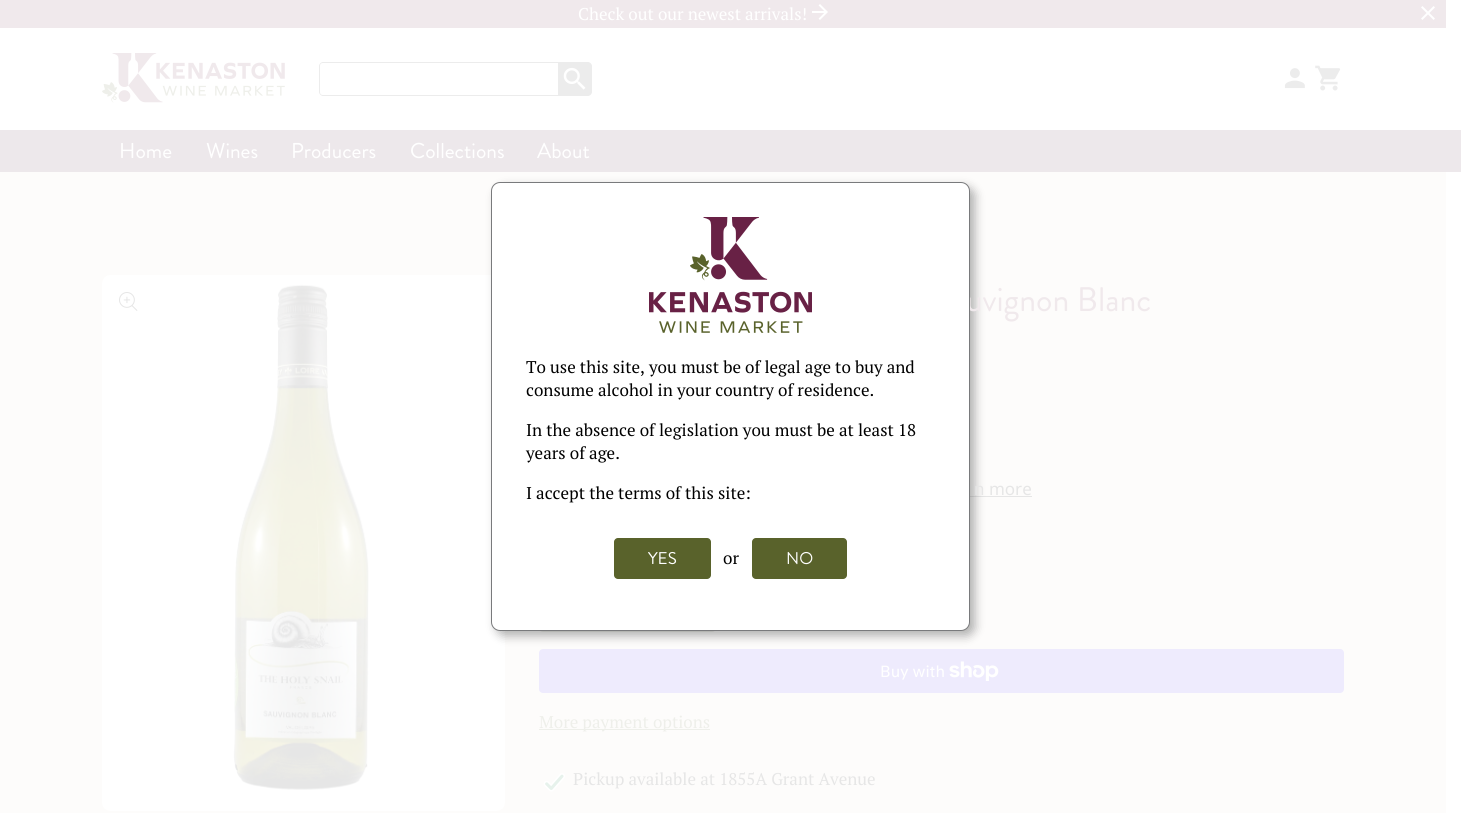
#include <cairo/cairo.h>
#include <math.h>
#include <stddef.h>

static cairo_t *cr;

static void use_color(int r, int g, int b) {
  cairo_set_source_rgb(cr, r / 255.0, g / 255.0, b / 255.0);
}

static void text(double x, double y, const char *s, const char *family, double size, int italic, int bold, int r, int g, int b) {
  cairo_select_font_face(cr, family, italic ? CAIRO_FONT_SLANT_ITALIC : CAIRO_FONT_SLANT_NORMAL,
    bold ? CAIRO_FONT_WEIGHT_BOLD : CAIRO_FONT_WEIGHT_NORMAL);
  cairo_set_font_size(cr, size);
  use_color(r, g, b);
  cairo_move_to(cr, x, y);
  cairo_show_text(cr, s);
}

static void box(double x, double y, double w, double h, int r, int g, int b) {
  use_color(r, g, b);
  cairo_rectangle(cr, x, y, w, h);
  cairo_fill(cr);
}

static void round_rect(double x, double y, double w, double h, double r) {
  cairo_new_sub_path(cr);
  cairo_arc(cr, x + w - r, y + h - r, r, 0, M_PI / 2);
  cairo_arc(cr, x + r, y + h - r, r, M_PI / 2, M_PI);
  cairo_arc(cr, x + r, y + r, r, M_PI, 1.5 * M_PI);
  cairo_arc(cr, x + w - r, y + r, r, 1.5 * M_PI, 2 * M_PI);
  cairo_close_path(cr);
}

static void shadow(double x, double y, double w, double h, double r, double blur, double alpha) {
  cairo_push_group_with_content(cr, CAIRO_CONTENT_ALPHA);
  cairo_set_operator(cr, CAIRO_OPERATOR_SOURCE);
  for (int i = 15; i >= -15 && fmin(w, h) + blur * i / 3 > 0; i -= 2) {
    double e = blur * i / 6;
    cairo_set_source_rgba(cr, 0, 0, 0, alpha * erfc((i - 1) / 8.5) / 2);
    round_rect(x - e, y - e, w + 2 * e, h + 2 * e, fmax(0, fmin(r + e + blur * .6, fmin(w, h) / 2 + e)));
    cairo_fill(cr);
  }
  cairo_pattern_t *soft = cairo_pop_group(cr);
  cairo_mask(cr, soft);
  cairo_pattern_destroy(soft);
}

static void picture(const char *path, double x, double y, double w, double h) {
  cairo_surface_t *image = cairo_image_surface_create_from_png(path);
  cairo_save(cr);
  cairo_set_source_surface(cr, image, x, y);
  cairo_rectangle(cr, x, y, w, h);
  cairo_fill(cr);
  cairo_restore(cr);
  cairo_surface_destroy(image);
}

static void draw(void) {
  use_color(255, 255, 255);
  cairo_paint(cr);
  box(0, 0, 1446, 28, 240, 233, 236);
  picture("img_01.png", 812, 4, 16, 16);
  picture("img_02.png", 1421, 6, 14, 14);
  picture("img_03.png", 102, 53, 183, 50);
  picture("img_04.png", 1284, 68, 21, 21);
  picture("img_05.png", 1315, 65, 26, 26);
  use_color(236, 236, 236);
  cairo_set_fill_rule(cr, CAIRO_FILL_RULE_EVEN_ODD);
  cairo_new_path(cr);
  cairo_move_to(cr, 323, 62);
  cairo_line_to(cr, 558, 62);
  cairo_line_to(cr, 558, 96);
  cairo_line_to(cr, 323, 96);
  cairo_curve_to(cr, 321, 96, 319, 94, 319, 92);
  cairo_line_to(cr, 319, 66);
  cairo_curve_to(cr, 319, 64, 321, 62, 323, 62);
  cairo_close_path(cr);
  cairo_move_to(cr, 323, 63);
  cairo_line_to(cr, 558, 63);
  cairo_line_to(cr, 558, 95);
  cairo_line_to(cr, 323, 95);
  cairo_curve_to(cr, 321, 95, 320, 94, 320, 92);
  cairo_line_to(cr, 320, 66);
  cairo_curve_to(cr, 320, 64, 321, 63, 323, 63);
  cairo_close_path(cr);
  cairo_fill(cr);
  cairo_new_path(cr);
  cairo_move_to(cr, 558, 62);
  cairo_line_to(cr, 588, 62);
  cairo_curve_to(cr, 590, 62, 592, 64, 592, 66);
  cairo_line_to(cr, 592, 92);
  cairo_curve_to(cr, 592, 94, 590, 96, 588, 96);
  cairo_line_to(cr, 558, 96);
  cairo_close_path(cr);
  cairo_fill(cr);
  picture("img_06.png", 563, 67, 23, 23);
  box(0, 130, 1461, 42, 237, 232, 235);
  box(0, 172, 1446, 641, 253, 252, 251);
  picture("img_07.png", 102, 275, 403, 536);
  picture("img_08.png", 119, 292, 19, 19);
  box(970, 496, 62, 1, 230, 230, 230);
  use_color(238, 239, 234);
  round_rect(539, 591, 177, 41, 4);
  cairo_fill(cr);
  use_color(238, 235, 253);
  round_rect(539, 649, 805, 44, 4);
  cairo_fill(cr);
  picture("img_09.png", 949, 661, 50, 20);
  box(539, 729, 171, 1, 238, 239, 234);
  picture("img_10.png", 543, 773, 22, 19);
  use_color(0, 0, 0);
  shadow(496, 187, 479, 449, 9, 5, 0.3);
  text(578, 20, "Check out our newest arrivals!", "PT Serif", 17, 0, 0, 255, 255, 255);
  text(119, 158, "Home", "Brandon Grotesque", 21.5, 0, 0, 255, 255, 255);
  text(206, 158, "Wines", "Brandon Grotesque", 21.5, 0, 0, 255, 255, 255);
  text(291, 158, "Producers", "Brandon Grotesque", 21.5, 0, 0, 255, 255, 255);
  text(410, 158, "Collections", "Brandon Grotesque", 21.5, 0, 0, 255, 255, 255);
  text(537, 158, "About", "Brandon Grotesque", 21.5, 0, 0, 255, 255, 255);
  text(966, 311, "uvignon Blanc", "Brandon Grotesque", 34, 0, 0, 240, 233, 236);
  text(974, 495, "n more", "Noto Sans", 17, 0, 0, 230, 230, 230);
  text(880, 677, "Buy with", "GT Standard", 16, 0, 0, 255, 255, 255);
  text(539, 728, "More payment options", "PT Serif", 17, 0, 0, 238, 239, 234);
  text(573, 785, "Pickup available at 1855A Grant Avenue", "PT Serif", 17, 0, 0, 230, 230, 230);
  use_color(255, 255, 255);
  round_rect(491.5, 182.5, 478, 448, 8.5);
  cairo_fill_preserve(cr);
  use_color(121, 122, 124);
  cairo_set_line_width(cr, 1);
  cairo_stroke(cr);
  picture("img_11.png", 649, 217, 163, 116);
  text(526, 373, "To use this site, you must be of legal age to buy and", "PT Serif", 17, 0, 0, 0, 0, 0);
  text(526, 396, "consume alcohol in your country of residence.", "PT Serif", 17, 0, 0, 0, 0, 0);
  text(526, 436, "In the absence of legislation you must be at least 18", "PT Serif", 17, 0, 0, 0, 0, 0);
  text(526, 459, "years of age.", "PT Serif", 17, 0, 0, 0, 0, 0);
  text(526, 499, "I accept the terms of this site:", "PT Serif", 17, 0, 0, 0, 0, 0);
  use_color(89, 98, 43);
  round_rect(614, 538, 97, 41, 4);
  cairo_fill(cr);
  text(648, 564, "YES", "Brandon Grotesque", 17, 0, 0, 255, 255, 255);
  text(723, 564, "or", "PT Serif", 17, 0, 0, 0, 0, 0);
  use_color(89, 98, 43);
  round_rect(752, 538, 95, 41, 4);
  cairo_fill(cr);
  text(786, 564, "NO", "Brandon Grotesque", 17, 0, 0, 255, 255, 255);
}

int main(void) {
  cairo_surface_t *surface = cairo_image_surface_create(CAIRO_FORMAT_RGB24, 1461, 813);
  cr = cairo_create(surface);
  cairo_font_options_t *options = cairo_font_options_create();
  cairo_font_options_set_hint_metrics(options, CAIRO_HINT_METRICS_OFF);
  cairo_font_options_set_hint_style(options, CAIRO_HINT_STYLE_NONE);
  cairo_set_font_options(cr, options);
  cairo_set_miter_limit(cr, 4);
  draw();
  cairo_surface_write_to_png(surface, "out.png");
  cairo_font_options_destroy(options);
  cairo_destroy(cr);
  cairo_surface_destroy(surface);
  return 0;
}
